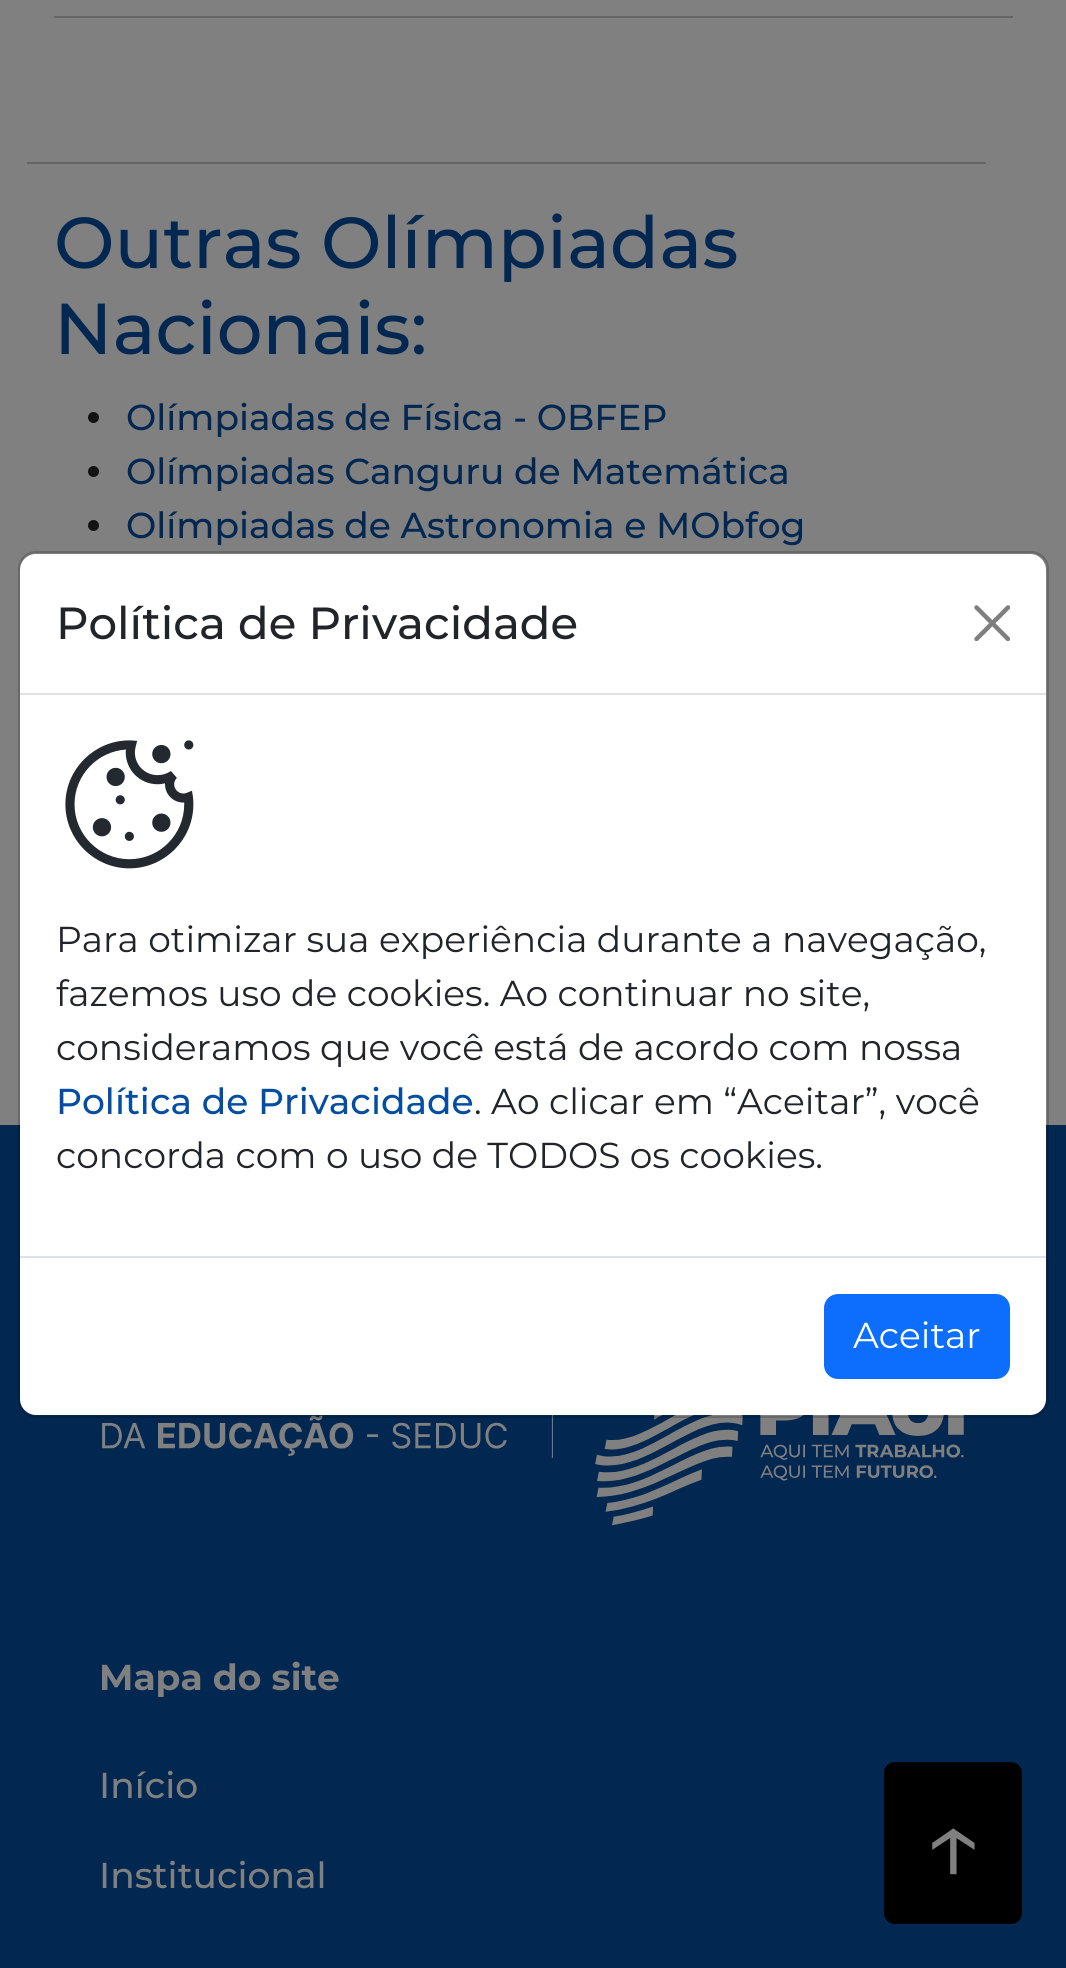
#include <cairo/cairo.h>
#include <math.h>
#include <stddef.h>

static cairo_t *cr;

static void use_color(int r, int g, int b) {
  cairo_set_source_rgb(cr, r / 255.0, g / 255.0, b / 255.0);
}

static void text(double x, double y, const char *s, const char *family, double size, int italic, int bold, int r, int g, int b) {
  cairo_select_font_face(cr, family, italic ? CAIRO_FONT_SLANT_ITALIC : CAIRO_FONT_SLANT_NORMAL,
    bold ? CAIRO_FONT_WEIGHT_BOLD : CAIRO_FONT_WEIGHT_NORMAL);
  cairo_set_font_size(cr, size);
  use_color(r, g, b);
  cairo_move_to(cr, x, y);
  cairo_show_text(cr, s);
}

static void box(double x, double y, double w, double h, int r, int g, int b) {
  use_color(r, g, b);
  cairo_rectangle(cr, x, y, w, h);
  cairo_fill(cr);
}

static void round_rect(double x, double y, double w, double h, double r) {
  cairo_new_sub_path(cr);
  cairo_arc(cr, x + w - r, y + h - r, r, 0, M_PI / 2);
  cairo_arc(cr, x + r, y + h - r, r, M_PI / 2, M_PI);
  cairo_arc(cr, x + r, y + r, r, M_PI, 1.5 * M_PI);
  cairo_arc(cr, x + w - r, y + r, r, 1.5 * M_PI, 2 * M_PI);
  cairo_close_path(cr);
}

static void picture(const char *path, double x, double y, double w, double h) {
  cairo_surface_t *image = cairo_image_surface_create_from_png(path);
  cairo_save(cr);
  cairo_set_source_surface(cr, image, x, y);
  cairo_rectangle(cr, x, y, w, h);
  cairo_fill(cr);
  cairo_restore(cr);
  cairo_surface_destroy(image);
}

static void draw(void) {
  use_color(128, 128, 128);
  cairo_paint(cr);
  box(54, 16, 959, 2, 102, 102, 102);
  box(27, 162, 959, 2, 100, 101, 101);
  use_color(17, 19, 21);
  cairo_arc(cr, 93.5, 417.5, 5.5, 0, 2 * M_PI);
  cairo_fill(cr);
  cairo_arc(cr, 93.5, 471.5, 5.5, 0, 2 * M_PI);
  cairo_fill(cr);
  cairo_arc(cr, 93.5, 525.5, 5.5, 0, 2 * M_PI);
  cairo_fill(cr);
  box(0, 1125, 1066, 843, 2, 39, 81);
  use_color(255, 255, 255);
  round_rect(20, 554, 1026, 861, 16);
  cairo_fill(cr);
  picture("img_03.png", 102, 1415, 862, 111);
  round_rect(19, 552, 1029, 865, 17);
  cairo_set_source_rgba(cr, 0, 0, 0, 0.18);
  cairo_stroke(cr);
  box(20, 693, 1026, 2, 222, 226, 230);
  picture("img_01.png", 974, 605, 36, 36);
  picture("img_02.png", 65, 740, 129, 129);
  box(20, 1256, 1026, 2, 222, 226, 230);
  use_color(13, 110, 253);
  round_rect(825, 1295, 184, 83, 13);
  cairo_fill_preserve(cr);
  cairo_stroke(cr);
  use_color(0, 0, 0);
  round_rect(884, 1762, 138, 162, 11);
  cairo_fill(cr);
  text(54, 268, "Outras Olímpiadas", "Montserrat Medium", 72, 0, 0, 2, 39, 81);
  text(54, 354, "Nacionais:", "Montserrat Medium", 72, 0, 0, 2, 39, 81);
  text(126, 430, "Olímpiadas de Física - OBFEP", "Montserrat Medium", 36, 0, 0, 2, 39, 81);
  text(126, 484, "Olímpiadas Canguru de Matemática", "Montserrat Medium", 36, 0, 0, 2, 39, 81);
  text(126, 538, "Olímpiadas de Astronomia e MObfog", "Montserrat Medium", 36, 0, 0, 2, 39, 81);
  text(56, 639, "Política de Privacidade", "Montserrat Medium", 45, 0, 0, 33, 37, 41);
  text(56, 952, "Para otimizar sua experiência durante a navegação,", "Montserrat", 36, 0, 0, 33, 37, 41);
  text(56, 1006, "fazemos uso de cookies. Ao continuar no site,", "Montserrat", 36, 0, 0, 33, 37, 41);
  text(56, 1060, "consideramos que você está de acordo com nossa", "Montserrat", 36, 0, 0, 33, 37, 41);
  text(56, 1114, "Política de Privacidade", "Montserrat Medium", 36, 0, 0, 3, 78, 162);
  text(474, 1114, ". Ao clicar em “Aceitar”, você", "Montserrat", 36, 0, 0, 33, 37, 41);
  text(56, 1168, "concorda com o uso de TODOS os cookies.", "Montserrat", 36, 0, 0, 33, 37, 41);
  text(853, 1348, "Aceitar", "Montserrat", 36, 0, 0, 255, 255, 255);
  text(99, 1690, "Mapa do site", "Montserrat", 36, 0, 1, 128, 128, 128);
  text(99, 1798, "Início", "Montserrat Medium", 36, 0, 0, 128, 128, 128);
  text(99, 1888, "Institucional", "Montserrat Medium", 36, 0, 0, 128, 128, 128);
  text(921, 1881, "↑", "Montserrat", 108, 0, 0, 128, 128, 128);
}

int main(void) {
  cairo_surface_t *surface = cairo_image_surface_create(CAIRO_FORMAT_RGB24, 1066, 1968);
  cr = cairo_create(surface);
  cairo_font_options_t *options = cairo_font_options_create();
  cairo_font_options_set_hint_metrics(options, CAIRO_HINT_METRICS_OFF);
  cairo_font_options_set_hint_style(options, CAIRO_HINT_STYLE_NONE);
  cairo_set_font_options(cr, options);
  cairo_set_miter_limit(cr, 4);
  draw();
  cairo_surface_write_to_png(surface, "out.png");
  cairo_font_options_destroy(options);
  cairo_destroy(cr);
  cairo_surface_destroy(surface);
  return 0;
}
